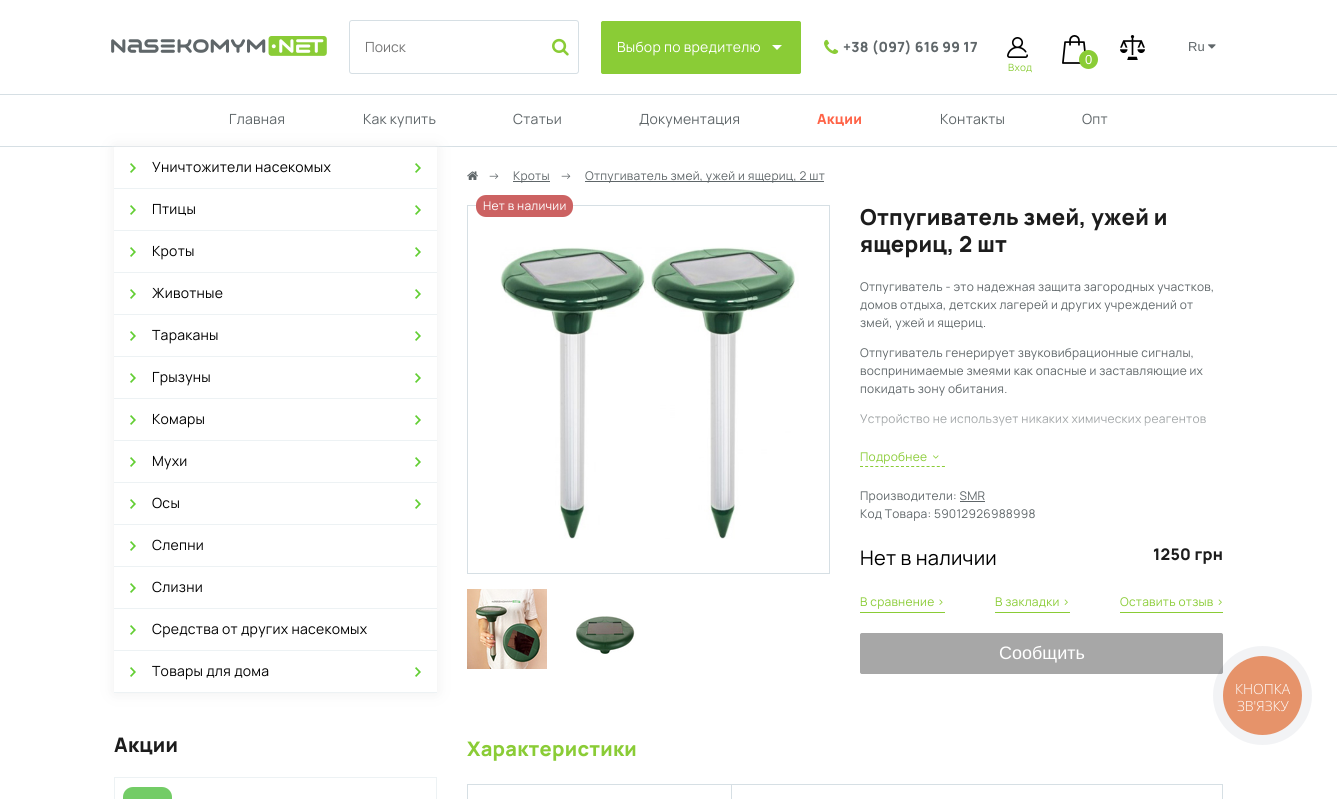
#include <cairo/cairo.h>
#include <math.h>
#include <stddef.h>

static cairo_t *cr;

static void use_color(int r, int g, int b) {
  cairo_set_source_rgb(cr, r / 255.0, g / 255.0, b / 255.0);
}

static void text(double x, double y, const char *s, const char *family, double size, int italic, int bold, int r, int g, int b) {
  cairo_select_font_face(cr, family, italic ? CAIRO_FONT_SLANT_ITALIC : CAIRO_FONT_SLANT_NORMAL,
    bold ? CAIRO_FONT_WEIGHT_BOLD : CAIRO_FONT_WEIGHT_NORMAL);
  cairo_set_font_size(cr, size);
  use_color(r, g, b);
  cairo_move_to(cr, x, y);
  cairo_show_text(cr, s);
}

static void spaced_text(double x, double y, const char *s, double letter, double word) {
  cairo_move_to(cr, x, y);
  while (*s) {
    char ch[5] = {0};
    int n = 0;
    do ch[n++] = *s++; while ((*s & 0xC0) == 0x80);
    cairo_show_text(cr, ch);
    cairo_rel_move_to(cr, letter + word * (*ch == ' '), 0);
  }
}

static void box(double x, double y, double w, double h, int r, int g, int b) {
  use_color(r, g, b);
  cairo_rectangle(cr, x, y, w, h);
  cairo_fill(cr);
}

static void round_rect(double x, double y, double w, double h, double r) {
  cairo_new_sub_path(cr);
  cairo_arc(cr, x + w - r, y + h - r, r, 0, M_PI / 2);
  cairo_arc(cr, x + r, y + h - r, r, M_PI / 2, M_PI);
  cairo_arc(cr, x + r, y + r, r, M_PI, 1.5 * M_PI);
  cairo_arc(cr, x + w - r, y + r, r, 1.5 * M_PI, 2 * M_PI);
  cairo_close_path(cr);
}

static void shadow(double x, double y, double w, double h, double r, double blur, double alpha) {
  cairo_push_group_with_content(cr, CAIRO_CONTENT_ALPHA);
  cairo_set_operator(cr, CAIRO_OPERATOR_SOURCE);
  for (int i = 15; i >= -15 && fmin(w, h) + blur * i / 3 > 0; i -= 2) {
    double e = blur * i / 6;
    cairo_set_source_rgba(cr, 0, 0, 0, alpha * erfc((i - 1) / 8.5) / 2);
    round_rect(x - e, y - e, w + 2 * e, h + 2 * e, fmax(0, fmin(r + e + blur * .6, fmin(w, h) / 2 + e)));
    cairo_fill(cr);
  }
  cairo_pattern_t *soft = cairo_pop_group(cr);
  cairo_mask(cr, soft);
  cairo_pattern_destroy(soft);
}

static void picture(const char *path, double x, double y, double w, double h) {
  cairo_surface_t *image = cairo_image_surface_create_from_png(path);
  cairo_save(cr);
  cairo_set_source_surface(cr, image, x, y);
  cairo_rectangle(cr, x, y, w, h);
  cairo_fill(cr);
  cairo_restore(cr);
  cairo_surface_destroy(image);
}

static void draw(void) {
  cairo_pattern_t *gradient;
  use_color(255, 255, 255);
  cairo_paint(cr);
  picture("img_01.png", 111, 36, 216, 20);
  round_rect(349.5, 20.5, 229, 53, 2.5);
  use_color(214, 223, 228);
  cairo_set_line_width(cr, 1);
  cairo_stroke(cr);
  picture("img_02.png", 552, 38, 17, 18);
  use_color(138, 204, 54);
  round_rect(601.5, 21.5, 199, 52, 1.5);
  cairo_fill_preserve(cr);
  cairo_stroke(cr);
  use_color(255, 255, 255);
  cairo_new_path(cr);
  cairo_move_to(cr, 772, 45);
  cairo_line_to(cr, 777, 50);
  cairo_line_to(cr, 782, 45);
  cairo_close_path(cr);
  cairo_fill(cr);
  picture("img_03.png", 824, 39, 15, 15);
  picture("img_04.png", 1120, 35, 25, 25);
  picture("img_05.png", 1208, 44, 8, 5);
  picture("img_06.png", 1062, 35, 24, 29);
  use_color(138, 204, 54);
  cairo_arc(cr, 1088.5, 59.5, 9.5, 0, 2 * M_PI);
  cairo_fill(cr);
  picture("img_07.png", 1007, 37, 21, 21);
  box(0, 94, 1337, 1, 214, 223, 228);
  box(0, 146, 1337, 1, 214, 223, 228);
  cairo_save(cr);
  cairo_set_fill_rule(cr, CAIRO_FILL_RULE_EVEN_ODD);
  cairo_new_path(cr);
  cairo_move_to(cr, 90, 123);
  cairo_line_to(cr, 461, 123);
  cairo_line_to(cr, 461, 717);
  cairo_line_to(cr, 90, 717);
  cairo_close_path(cr);
  cairo_move_to(cr, 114, 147);
  cairo_line_to(cr, 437, 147);
  cairo_line_to(cr, 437, 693);
  cairo_line_to(cr, 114, 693);
  cairo_close_path(cr);
  cairo_clip(cr);
  use_color(240, 240, 240);
  shadow(114, 147, 323, 546, 0, 7.5, 1);
  cairo_restore(cr);
  picture("img_08.png", 130, 163, 291, 10);
  box(114, 188, 323, 1, 237, 242, 244);
  picture("img_08.png", 130, 205, 291, 10);
  box(114, 230, 323, 1, 237, 242, 244);
  picture("img_08.png", 130, 247, 291, 10);
  box(114, 272, 323, 1, 237, 242, 244);
  picture("img_08.png", 130, 289, 291, 10);
  box(114, 314, 323, 1, 237, 242, 244);
  picture("img_08.png", 130, 331, 291, 10);
  box(114, 356, 323, 1, 237, 242, 244);
  picture("img_08.png", 130, 373, 291, 10);
  box(114, 398, 323, 1, 237, 242, 244);
  picture("img_08.png", 130, 415, 291, 10);
  box(114, 440, 323, 1, 237, 242, 244);
  picture("img_08.png", 130, 457, 291, 10);
  box(114, 482, 323, 1, 237, 242, 244);
  picture("img_08.png", 130, 499, 291, 10);
  box(114, 524, 323, 1, 237, 242, 244);
  picture("img_09.png", 130, 541, 6, 10);
  box(114, 566, 323, 1, 237, 242, 244);
  picture("img_09.png", 130, 583, 6, 10);
  box(114, 608, 323, 1, 237, 242, 244);
  picture("img_09.png", 130, 625, 6, 10);
  box(114, 650, 323, 1, 237, 242, 244);
  picture("img_08.png", 130, 667, 291, 10);
  box(114, 692, 323, 1, 237, 242, 244);
  box(114, 777, 323, 1, 237, 242, 244);
  box(436, 777, 1, 22, 237, 242, 244);
  box(114, 777, 1, 22, 237, 242, 244);
  use_color(115, 204, 102);
  round_rect(123, 787, 49, 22, 10);
  cairo_fill(cr);
  picture("img_10.png", 467, 171, 11, 9);
  box(513, 181, 37, 1, 95, 102, 105);
  box(585, 181, 239, 1, 95, 102, 105);
  cairo_rectangle(cr, 467.5, 205.5, 362, 368);
  use_color(214, 223, 228);
  cairo_stroke(cr);
  use_color(204, 98, 98);
  round_rect(476, 195, 97, 22, 10);
  cairo_fill(cr);
  picture("img_11.png", 500, 247, 299, 292);
  picture("img_12.png", 467, 589, 80, 80);
  picture("img_13.png", 576, 616, 60, 38);
  cairo_new_path(cr);
  cairo_move_to(cr, 860, 466.5);
  cairo_line_to(cr, 945, 466.5);
  use_color(138, 204, 54);
  cairo_set_dash(cr, (double[]){3, 2.12}, 2, 0);
  cairo_stroke(cr);
  box(960, 501, 25, 1, 95, 102, 105);
  box(860, 612, 85, 1, 138, 204, 54);
  box(995, 612, 75, 1, 138, 204, 54);
  box(1120, 612, 103, 1, 138, 204, 54);
  use_color(167, 167, 167);
  round_rect(860.5, 633.5, 362, 40, 1.5);
  cairo_fill_preserve(cr);
  cairo_set_dash(cr, NULL, 0, 0);
  cairo_stroke(cr);
  box(467, 784, 756, 1, 214, 223, 228);
  box(1222, 784, 1, 15, 214, 223, 228);
  box(467, 784, 1, 15, 214, 223, 228);
  box(731, 784, 1, 15, 214, 223, 228);
  cairo_set_source_rgba(cr, 0.165, 0.251, 0.365, 0.06);
  cairo_arc(cr, 1262.5, 695.5, 49.5, 0, 2 * M_PI);
  cairo_fill(cr);
  use_color(230, 147, 106);
  cairo_arc(cr, 1262.5, 695.5, 39.5, 0, 2 * M_PI);
  cairo_fill(cr);
  text(365, 52, "Поиск", "Manrope", 14, 0, 0, 117, 117, 117);
  use_color(255, 255, 255);
  spaced_text(617, 52, "Выбор по вредителю", 0.25, 0);
  cairo_select_font_face(cr, "Manrope ExtraBold", CAIRO_FONT_SLANT_NORMAL, CAIRO_FONT_WEIGHT_NORMAL);
  use_color(95, 102, 105);
  spaced_text(843, 52, "+38 (097) 616 99 17", 0.25, 0);
  text(1188, 51, "Ru", "Liberation Sans", 13, 0, 0, 95, 102, 105);
  text(1085, 64, "0", "Liberation Sans", 13, 0, 0, 255, 255, 255);
  cairo_select_font_face(cr, "Manrope", CAIRO_FONT_SLANT_NORMAL, CAIRO_FONT_WEIGHT_NORMAL);
  cairo_set_font_size(cr, 10);
  use_color(138, 204, 54);
  spaced_text(1008, 71, "Вход", 0.25, 0);
  cairo_set_font_size(cr, 14);
  use_color(95, 102, 105);
  spaced_text(229, 124, "Главная", 0.25, 0);
  spaced_text(363, 124, "Как купить", 0.25, 0);
  spaced_text(513, 124, "Статьи", 0.25, 0);
  spaced_text(639, 124, "Документация", 0.25, 0);
  cairo_select_font_face(cr, "Manrope ExtraBold", CAIRO_FONT_SLANT_NORMAL, CAIRO_FONT_WEIGHT_NORMAL);
  use_color(255, 99, 71);
  spaced_text(817, 124, "Акции", 0.25, 0);
  cairo_select_font_face(cr, "Manrope", CAIRO_FONT_SLANT_NORMAL, CAIRO_FONT_WEIGHT_NORMAL);
  use_color(95, 102, 105);
  spaced_text(940, 124, "Контакты", 0.25, 0);
  spaced_text(1082, 124, "Опт", 0.25, 0);
  use_color(0, 0, 0);
  spaced_text(152, 172, "Уничтожители насекомых", 0.25, 0);
  spaced_text(152, 214, "Птицы", 0.25, 0);
  spaced_text(152, 256, "Кроты", 0.25, 0);
  spaced_text(152, 298, "Животные", 0.25, 0);
  spaced_text(152, 340, "Тараканы", 0.25, 0);
  spaced_text(152, 382, "Грызуны", 0.25, 0);
  spaced_text(152, 424, "Комары", 0.25, 0);
  spaced_text(152, 466, "Мухи", 0.25, 0);
  spaced_text(152, 508, "Осы", 0.25, 0);
  spaced_text(152, 550, "Слепни", 0.25, 0);
  spaced_text(152, 592, "Слизни", 0.25, 0);
  spaced_text(152, 634, "Средства от других насекомых", 0.25, 0);
  spaced_text(152, 676, "Товары для дома", 0.25, 0);
  cairo_select_font_face(cr, "Manrope ExtraBold", CAIRO_FONT_SLANT_NORMAL, CAIRO_FONT_WEIGHT_NORMAL);
  cairo_set_font_size(cr, 20);
  use_color(28, 28, 28);
  spaced_text(114, 752, "Акции", 0.25, 0);
  cairo_select_font_face(cr, "Manrope", CAIRO_FONT_SLANT_NORMAL, CAIRO_FONT_WEIGHT_NORMAL);
  cairo_set_font_size(cr, 12);
  use_color(95, 102, 105);
  spaced_text(488, 180, "→", 0.25, 0);
  spaced_text(513, 180, "Кроты", 0.25, 0);
  spaced_text(560, 180, "→", 0.25, 0);
  spaced_text(585, 180, "Отпугиватель змей, ужей и ящериц, 2 шт", 0.25, 0);
  use_color(255, 255, 255);
  spaced_text(483, 210, "Нет в наличии", 0.25, 0);
  cairo_select_font_face(cr, "Manrope ExtraBold", CAIRO_FONT_SLANT_NORMAL, CAIRO_FONT_WEIGHT_NORMAL);
  cairo_set_font_size(cr, 22);
  use_color(28, 28, 28);
  spaced_text(860, 225, "Отпугиватель змей, ужей и", 0.25, 0);
  spaced_text(860, 252, "ящериц, 2 шт", 0.25, 0);
  cairo_select_font_face(cr, "Manrope", CAIRO_FONT_SLANT_NORMAL, CAIRO_FONT_WEIGHT_NORMAL);
  cairo_set_font_size(cr, 12);
  use_color(95, 102, 105);
  spaced_text(860, 291, "Отпугиватель - это надежная защита загородных участков,", 0.25, 0);
  spaced_text(860, 309, "домов отдыха, детских лагерей и других учреждений от", 0.25, 0);
  spaced_text(860, 327, "змей, ужей и ящериц.", 0.25, 0);
  spaced_text(860, 357, "Отпугиватель генерирует звуковибрационные сигналы,", 0.25, 0);
  spaced_text(860, 375, "воспринимаемые змеями как опасные и заставляющие их", 0.25, 0);
  spaced_text(860, 393, "покидать зону обитания.", 0.25, 0);
  spaced_text(860, 423, "Устройство не использует никаких химических реагентов", 0.25, 0);
  gradient = cairo_pattern_create_linear(1042, 448, 1042, 403);
  cairo_pattern_add_color_stop_rgba(gradient, 0.1, 1, 1, 1, 1);
  cairo_pattern_add_color_stop_rgba(gradient, 1, 1, 1, 1, 0);
  cairo_set_source(cr, gradient);
  cairo_pattern_destroy(gradient);
  cairo_rectangle(cr, 860, 414, 346, 12);
  cairo_fill(cr);
  use_color(138, 204, 54);
  spaced_text(860, 461, "Подробнее", 0.25, 0);
  cairo_save(cr);
  cairo_translate(cr, 932, 453);
  cairo_rotate(cr, 90 * M_PI / 180);
  spaced_text(0, 0, "›", 0.25, 0);
  cairo_restore(cr);
  use_color(95, 102, 105);
  spaced_text(860, 500, "Производители: SMR", 0.25, 0);
  spaced_text(860, 518, "Код Товара: 59012926988998", 0.25, 0);
  cairo_set_font_size(cr, 20);
  use_color(0, 0, 0);
  spaced_text(860, 565, "Нет в наличии", 0.25, 0);
  cairo_select_font_face(cr, "Manrope ExtraBold", CAIRO_FONT_SLANT_NORMAL, CAIRO_FONT_WEIGHT_NORMAL);
  cairo_set_font_size(cr, 16);
  use_color(28, 28, 28);
  spaced_text(1153, 560, "1250 грн", 0.25, 0);
  cairo_select_font_face(cr, "Manrope", CAIRO_FONT_SLANT_NORMAL, CAIRO_FONT_WEIGHT_NORMAL);
  cairo_set_font_size(cr, 12);
  use_color(138, 204, 54);
  spaced_text(860, 606, "В сравнение ›", 0.25, 0);
  spaced_text(995, 606, "В закладки ›", 0.25, 0);
  spaced_text(1120, 606, "Оставить отзыв ›", 0.25, 0);
  text(999, 659, "Сообщить", "Liberation Sans", 18, 0, 0, 255, 255, 255);
  cairo_select_font_face(cr, "Manrope ExtraBold", CAIRO_FONT_SLANT_NORMAL, CAIRO_FONT_WEIGHT_NORMAL);
  cairo_set_font_size(cr, 20);
  use_color(138, 204, 54);
  spaced_text(467, 756, "Характеристики", 0.25, 0);
  text(1235, 694, "КНОПКА", "Open Sans Light", 14, 0, 0, 255, 255, 255);
  text(1237, 711, "ЗВ'ЯЗКУ", "Open Sans Light", 14, 0, 0, 255, 255, 255);
}

int main(void) {
  cairo_surface_t *surface = cairo_image_surface_create(CAIRO_FORMAT_RGB24, 1337, 799);
  cr = cairo_create(surface);
  cairo_font_options_t *options = cairo_font_options_create();
  cairo_font_options_set_hint_metrics(options, CAIRO_HINT_METRICS_OFF);
  cairo_font_options_set_hint_style(options, CAIRO_HINT_STYLE_NONE);
  cairo_set_font_options(cr, options);
  cairo_set_miter_limit(cr, 4);
  draw();
  cairo_surface_write_to_png(surface, "out.png");
  cairo_font_options_destroy(options);
  cairo_destroy(cr);
  cairo_surface_destroy(surface);
  return 0;
}
